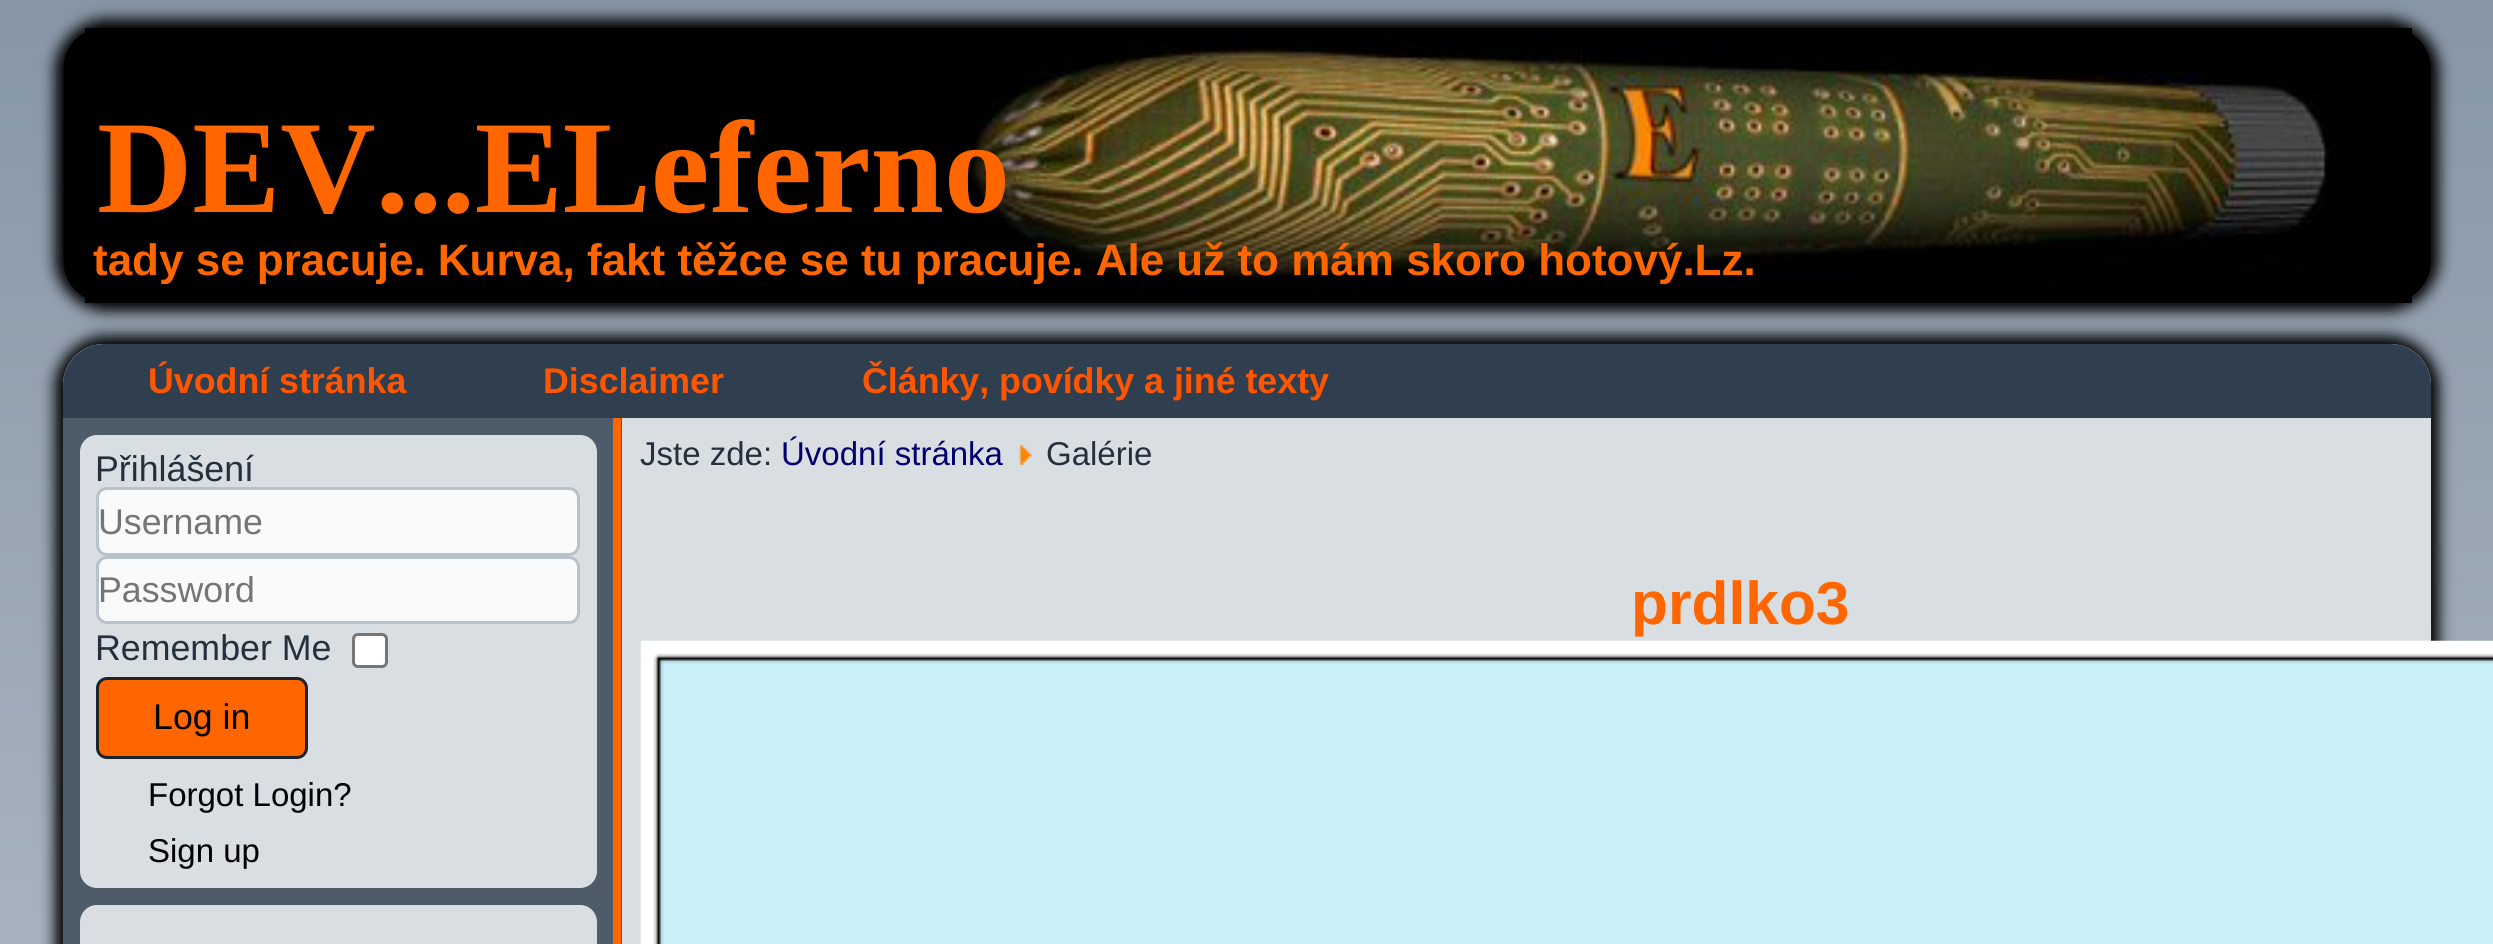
#include <cairo/cairo.h>
#include <math.h>
#include <stddef.h>

static cairo_t *cr;

static void use_color(int r, int g, int b) {
  cairo_set_source_rgb(cr, r / 255.0, g / 255.0, b / 255.0);
}

static void text(double x, double y, const char *s, const char *family, double size, int italic, int bold, int r, int g, int b) {
  cairo_select_font_face(cr, family, italic ? CAIRO_FONT_SLANT_ITALIC : CAIRO_FONT_SLANT_NORMAL,
    bold ? CAIRO_FONT_WEIGHT_BOLD : CAIRO_FONT_WEIGHT_NORMAL);
  cairo_set_font_size(cr, size);
  use_color(r, g, b);
  cairo_move_to(cr, x, y);
  cairo_show_text(cr, s);
}

static void box(double x, double y, double w, double h, int r, int g, int b) {
  use_color(r, g, b);
  cairo_rectangle(cr, x, y, w, h);
  cairo_fill(cr);
}

static void round_rect(double x, double y, double w, double h, double r) {
  cairo_new_sub_path(cr);
  cairo_arc(cr, x + w - r, y + h - r, r, 0, M_PI / 2);
  cairo_arc(cr, x + r, y + h - r, r, M_PI / 2, M_PI);
  cairo_arc(cr, x + r, y + r, r, M_PI, 1.5 * M_PI);
  cairo_arc(cr, x + w - r, y + r, r, 1.5 * M_PI, 2 * M_PI);
  cairo_close_path(cr);
}

static void shadow(double x, double y, double w, double h, double r, double blur, double alpha) {
  cairo_push_group_with_content(cr, CAIRO_CONTENT_ALPHA);
  cairo_set_operator(cr, CAIRO_OPERATOR_SOURCE);
  for (int i = 15; i >= -15 && fmin(w, h) + blur * i / 3 > 0; i -= 2) {
    double e = blur * i / 6;
    cairo_set_source_rgba(cr, 0, 0, 0, alpha * erfc((i - 1) / 8.5) / 2);
    round_rect(x - e, y - e, w + 2 * e, h + 2 * e, fmax(0, fmin(r + e + blur * .6, fmin(w, h) / 2 + e)));
    cairo_fill(cr);
  }
  cairo_pattern_t *soft = cairo_pop_group(cr);
  cairo_mask(cr, soft);
  cairo_pattern_destroy(soft);
}

static void picture(const char *path, double x, double y, double w, double h) {
  cairo_surface_t *image = cairo_image_surface_create_from_png(path);
  cairo_save(cr);
  cairo_set_source_surface(cr, image, x, y);
  cairo_rectangle(cr, x, y, w, h);
  cairo_fill(cr);
  cairo_restore(cr);
  cairo_surface_destroy(image);
}

static void draw(void) {
  cairo_pattern_t *gradient;
  use_color(255, 255, 255);
  cairo_paint(cr);
  gradient = cairo_pattern_create_linear(1247, 0, 1247, 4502);
  cairo_pattern_add_color_stop_rgba(gradient, 0, 0.529, 0.588, 0.651, 1);
  cairo_pattern_add_color_stop_rgba(gradient, 0.64, 0.918, 0.929, 0.941, 1);
  cairo_set_source(cr, gradient);
  cairo_pattern_destroy(gradient);
  cairo_rectangle(cr, 0, 0, 2493, 944);
  cairo_fill(cr);
  use_color(0, 0, 0);
  shadow(55, 19, 2384, 292, 50, 7, 1);
  picture("img_01.png", 63, 27, 2368, 271);
  box(85, 28, 2327, 6, 0, 0, 0);
  box(85, 297, 2327, 6, 0, 0, 0);
  use_color(0, 0, 0);
  shadow(55, 336, 2384, 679, 50, 7, 1);
  use_color(217, 222, 227);
  round_rect(63, 344, 2368, 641, 41);
  cairo_fill(cr);
  use_color(48, 63, 80);
  cairo_new_path(cr);
  cairo_move_to(cr, 104, 344);
  cairo_line_to(cr, 2390, 344);
  cairo_curve_to(cr, 2412.5, 344, 2431, 362.5, 2431, 385);
  cairo_line_to(cr, 2431, 418);
  cairo_line_to(cr, 63, 418);
  cairo_line_to(cr, 63, 385);
  cairo_curve_to(cr, 63, 362.5, 81.5, 344, 104, 344);
  cairo_close_path(cr);
  cairo_fill(cr);
  box(63, 418, 559, 526, 78, 92, 106);
  box(613, 418, 8, 526, 255, 102, 0);
  use_color(217, 222, 227);
  round_rect(80, 435, 517, 453, 17);
  cairo_fill(cr);
  use_color(249, 250, 251);
  round_rect(97.5, 488.5, 481, 66, 9.5);
  cairo_fill_preserve(cr);
  use_color(185, 194, 203);
  cairo_set_line_width(cr, 3);
  cairo_stroke(cr);
  use_color(249, 250, 251);
  round_rect(97.5, 557.5, 481, 65, 9.5);
  cairo_fill_preserve(cr);
  use_color(185, 194, 203);
  cairo_stroke(cr);
  use_color(255, 255, 255);
  round_rect(353.5, 634.5, 33, 32, 4.5);
  cairo_fill_preserve(cr);
  use_color(118, 118, 118);
  cairo_stroke(cr);
  use_color(255, 102, 0);
  round_rect(97.5, 678.5, 209, 79, 9.5);
  cairo_fill_preserve(cr);
  use_color(27, 35, 45);
  cairo_stroke(cr);
  use_color(217, 222, 227);
  round_rect(80, 905, 517, 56, 17);
  cairo_fill(cr);
  picture("img_02.png", 1019, 444, 14, 21);
  picture("img_03.png", 640, 640, 1853, 304);
  text(97, 212, "DEV...ELeferno", "Liberation Serif", 132, 0, 1, 255, 102, 0);
  text(93, 275, "tady se pracuje. Kurva, fakt těžce se tu pracuje. Ale už to mám skoro hotový.Lz.", "Liberation Sans", 44, 0, 1, 255, 102, 0);
  text(148, 393, "Úvodní stránka", "Liberation Sans", 35.75, 0, 1, 255, 85, 0);
  text(543, 393, "Disclaimer", "Liberation Sans", 35.75, 0, 1, 255, 85, 0);
  text(862, 393, "Články, povídky a jiné texty", "Liberation Sans", 35.75, 0, 1, 255, 85, 0);
  text(95, 481, "Přihlášení", "Liberation Sans", 35.75, 0, 0, 36, 48, 61);
  text(98, 534, "Username", "Liberation Sans", 35.75, 0, 0, 117, 117, 117);
  text(98, 602, "Password", "Liberation Sans", 35.75, 0, 0, 117, 117, 117);
  text(95, 660, "Remember Me", "Liberation Sans", 35.75, 0, 0, 36, 48, 61);
  text(153, 729, "Log in", "Liberation Sans", 35.75, 0, 0, 0, 0, 0);
  text(148, 806, "Forgot Login?", "Liberation Sans", 33, 0, 0, 0, 0, 0);
  text(148, 862, "Sign up", "Liberation Sans", 33, 0, 0, 0, 0, 0);
  text(640, 465, "Jste zde:", "Liberation Sans", 33, 0, 0, 36, 48, 61);
  text(781, 465, "Úvodní stránka", "Liberation Sans", 33, 0, 0, 0, 0, 112);
  text(1046, 465, "Galérie", "Liberation Sans", 33, 0, 0, 36, 48, 61);
  text(1631, 624, "prdlko3", "Liberation Sans", 60.5, 0, 1, 255, 102, 0);
}

int main(void) {
  cairo_surface_t *surface = cairo_image_surface_create(CAIRO_FORMAT_RGB24, 2493, 944);
  cr = cairo_create(surface);
  cairo_font_options_t *options = cairo_font_options_create();
  cairo_font_options_set_hint_metrics(options, CAIRO_HINT_METRICS_OFF);
  cairo_font_options_set_hint_style(options, CAIRO_HINT_STYLE_NONE);
  cairo_set_font_options(cr, options);
  cairo_set_miter_limit(cr, 4);
  draw();
  cairo_surface_write_to_png(surface, "out.png");
  cairo_font_options_destroy(options);
  cairo_destroy(cr);
  cairo_surface_destroy(surface);
  return 0;
}
